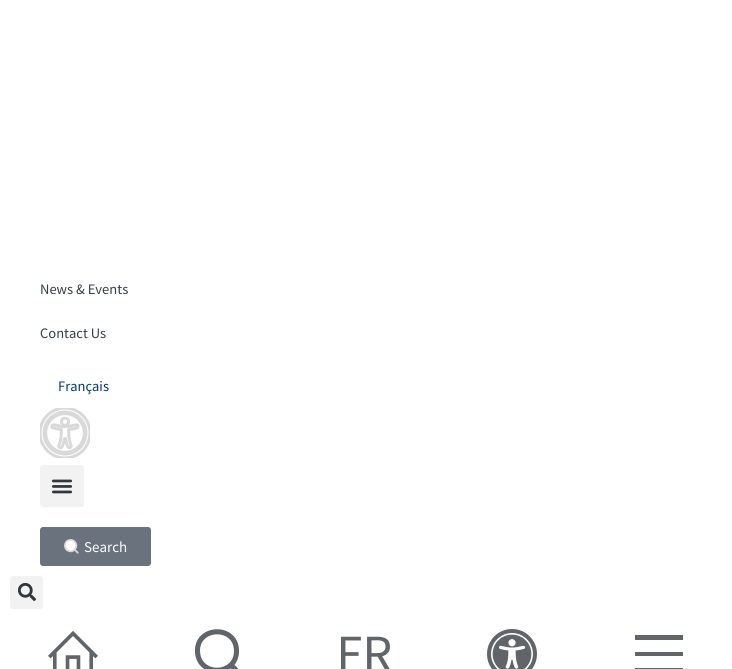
#include <cairo/cairo.h>
#include <math.h>
#include <stddef.h>

static cairo_t *cr;

static void use_color(int r, int g, int b) {
  cairo_set_source_rgb(cr, r / 255.0, g / 255.0, b / 255.0);
}

static void text(double x, double y, const char *s, const char *family, double size, int italic, int bold, int r, int g, int b) {
  cairo_select_font_face(cr, family, italic ? CAIRO_FONT_SLANT_ITALIC : CAIRO_FONT_SLANT_NORMAL,
    bold ? CAIRO_FONT_WEIGHT_BOLD : CAIRO_FONT_WEIGHT_NORMAL);
  cairo_set_font_size(cr, size);
  use_color(r, g, b);
  cairo_move_to(cr, x, y);
  cairo_show_text(cr, s);
}

static void round_rect(double x, double y, double w, double h, double r) {
  cairo_new_sub_path(cr);
  cairo_arc(cr, x + w - r, y + h - r, r, 0, M_PI / 2);
  cairo_arc(cr, x + r, y + h - r, r, M_PI / 2, M_PI);
  cairo_arc(cr, x + r, y + r, r, M_PI, 1.5 * M_PI);
  cairo_arc(cr, x + w - r, y + r, r, 1.5 * M_PI, 2 * M_PI);
  cairo_close_path(cr);
}

static void picture(const char *path, double x, double y, double w, double h) {
  cairo_surface_t *image = cairo_image_surface_create_from_png(path);
  cairo_save(cr);
  cairo_set_source_surface(cr, image, x, y);
  cairo_rectangle(cr, x, y, w, h);
  cairo_fill(cr);
  cairo_restore(cr);
  cairo_surface_destroy(image);
}

static void draw(void) {
  use_color(255, 255, 255);
  cairo_paint(cr);
  picture("img_01.png", 40, 408, 50, 50);
  use_color(242, 242, 242);
  round_rect(40, 465, 44, 42, 3);
  cairo_fill(cr);
  picture("img_02.png", 51, 479, 22, 15);
  use_color(105, 114, 125);
  round_rect(40, 527, 111, 39, 3);
  cairo_fill(cr);
  picture("img_03.png", 64, 539, 15, 15);
  use_color(242, 242, 242);
  round_rect(10, 576, 33, 33, 3);
  cairo_fill(cr);
  picture("img_04.png", 18, 583, 18, 18);
  picture("img_05.png", 48, 631, 50, 38);
  cairo_new_path(cr);
  cairo_move_to(cr, 236.5, 651);
  cairo_curve_to(cr, 236.5, 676, 199, 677, 197.5, 652);
  cairo_curve_to(cr, 196, 626, 236.5, 624.5, 236.5, 651);
  cairo_close_path(cr);
  cairo_move_to(cr, 241.5, 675.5);
  cairo_line_to(cr, 231, 665);
  use_color(97, 100, 105);
  cairo_set_line_width(cr, 5.1);
  cairo_set_line_cap(cr, CAIRO_LINE_CAP_ROUND);
  cairo_set_line_join(cr, CAIRO_LINE_JOIN_ROUND);
  cairo_stroke(cr);
  picture("img_06.png", 341, 636, 49, 33);
  picture("img_07.png", 487, 629, 50, 40);
  cairo_new_path(cr);
  cairo_move_to(cr, 635, 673);
  cairo_line_to(cr, 635, 668);
  cairo_line_to(cr, 683, 668);
  cairo_line_to(cr, 683, 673);
  cairo_close_path(cr);
  cairo_move_to(cr, 635, 656);
  cairo_line_to(cr, 635, 652);
  cairo_line_to(cr, 683, 652);
  cairo_line_to(cr, 683, 656);
  cairo_close_path(cr);
  cairo_move_to(cr, 635, 640);
  cairo_line_to(cr, 635, 635);
  cairo_line_to(cr, 683, 635);
  cairo_line_to(cr, 683, 640);
  cairo_close_path(cr);
  cairo_fill(cr);
  text(40, 294, "News & Events", "Source Sans Pro", 14.5, 0, 0, 51, 63, 72);
  text(40, 338, "Contact Us", "Source Sans Pro", 14.5, 0, 0, 51, 63, 72);
  text(58, 391, "Français", "Source Sans Pro", 14.5, 0, 0, 1, 58, 128);
  text(84, 552, "Search", "Source Sans Pro", 15, 0, 0, 255, 255, 255);
}

int main(void) {
  cairo_surface_t *surface = cairo_image_surface_create(CAIRO_FORMAT_RGB24, 732, 669);
  cr = cairo_create(surface);
  cairo_font_options_t *options = cairo_font_options_create();
  cairo_font_options_set_hint_metrics(options, CAIRO_HINT_METRICS_OFF);
  cairo_font_options_set_hint_style(options, CAIRO_HINT_STYLE_NONE);
  cairo_set_font_options(cr, options);
  cairo_set_miter_limit(cr, 4);
  draw();
  cairo_surface_write_to_png(surface, "out.png");
  cairo_font_options_destroy(options);
  cairo_destroy(cr);
  cairo_surface_destroy(surface);
  return 0;
}
